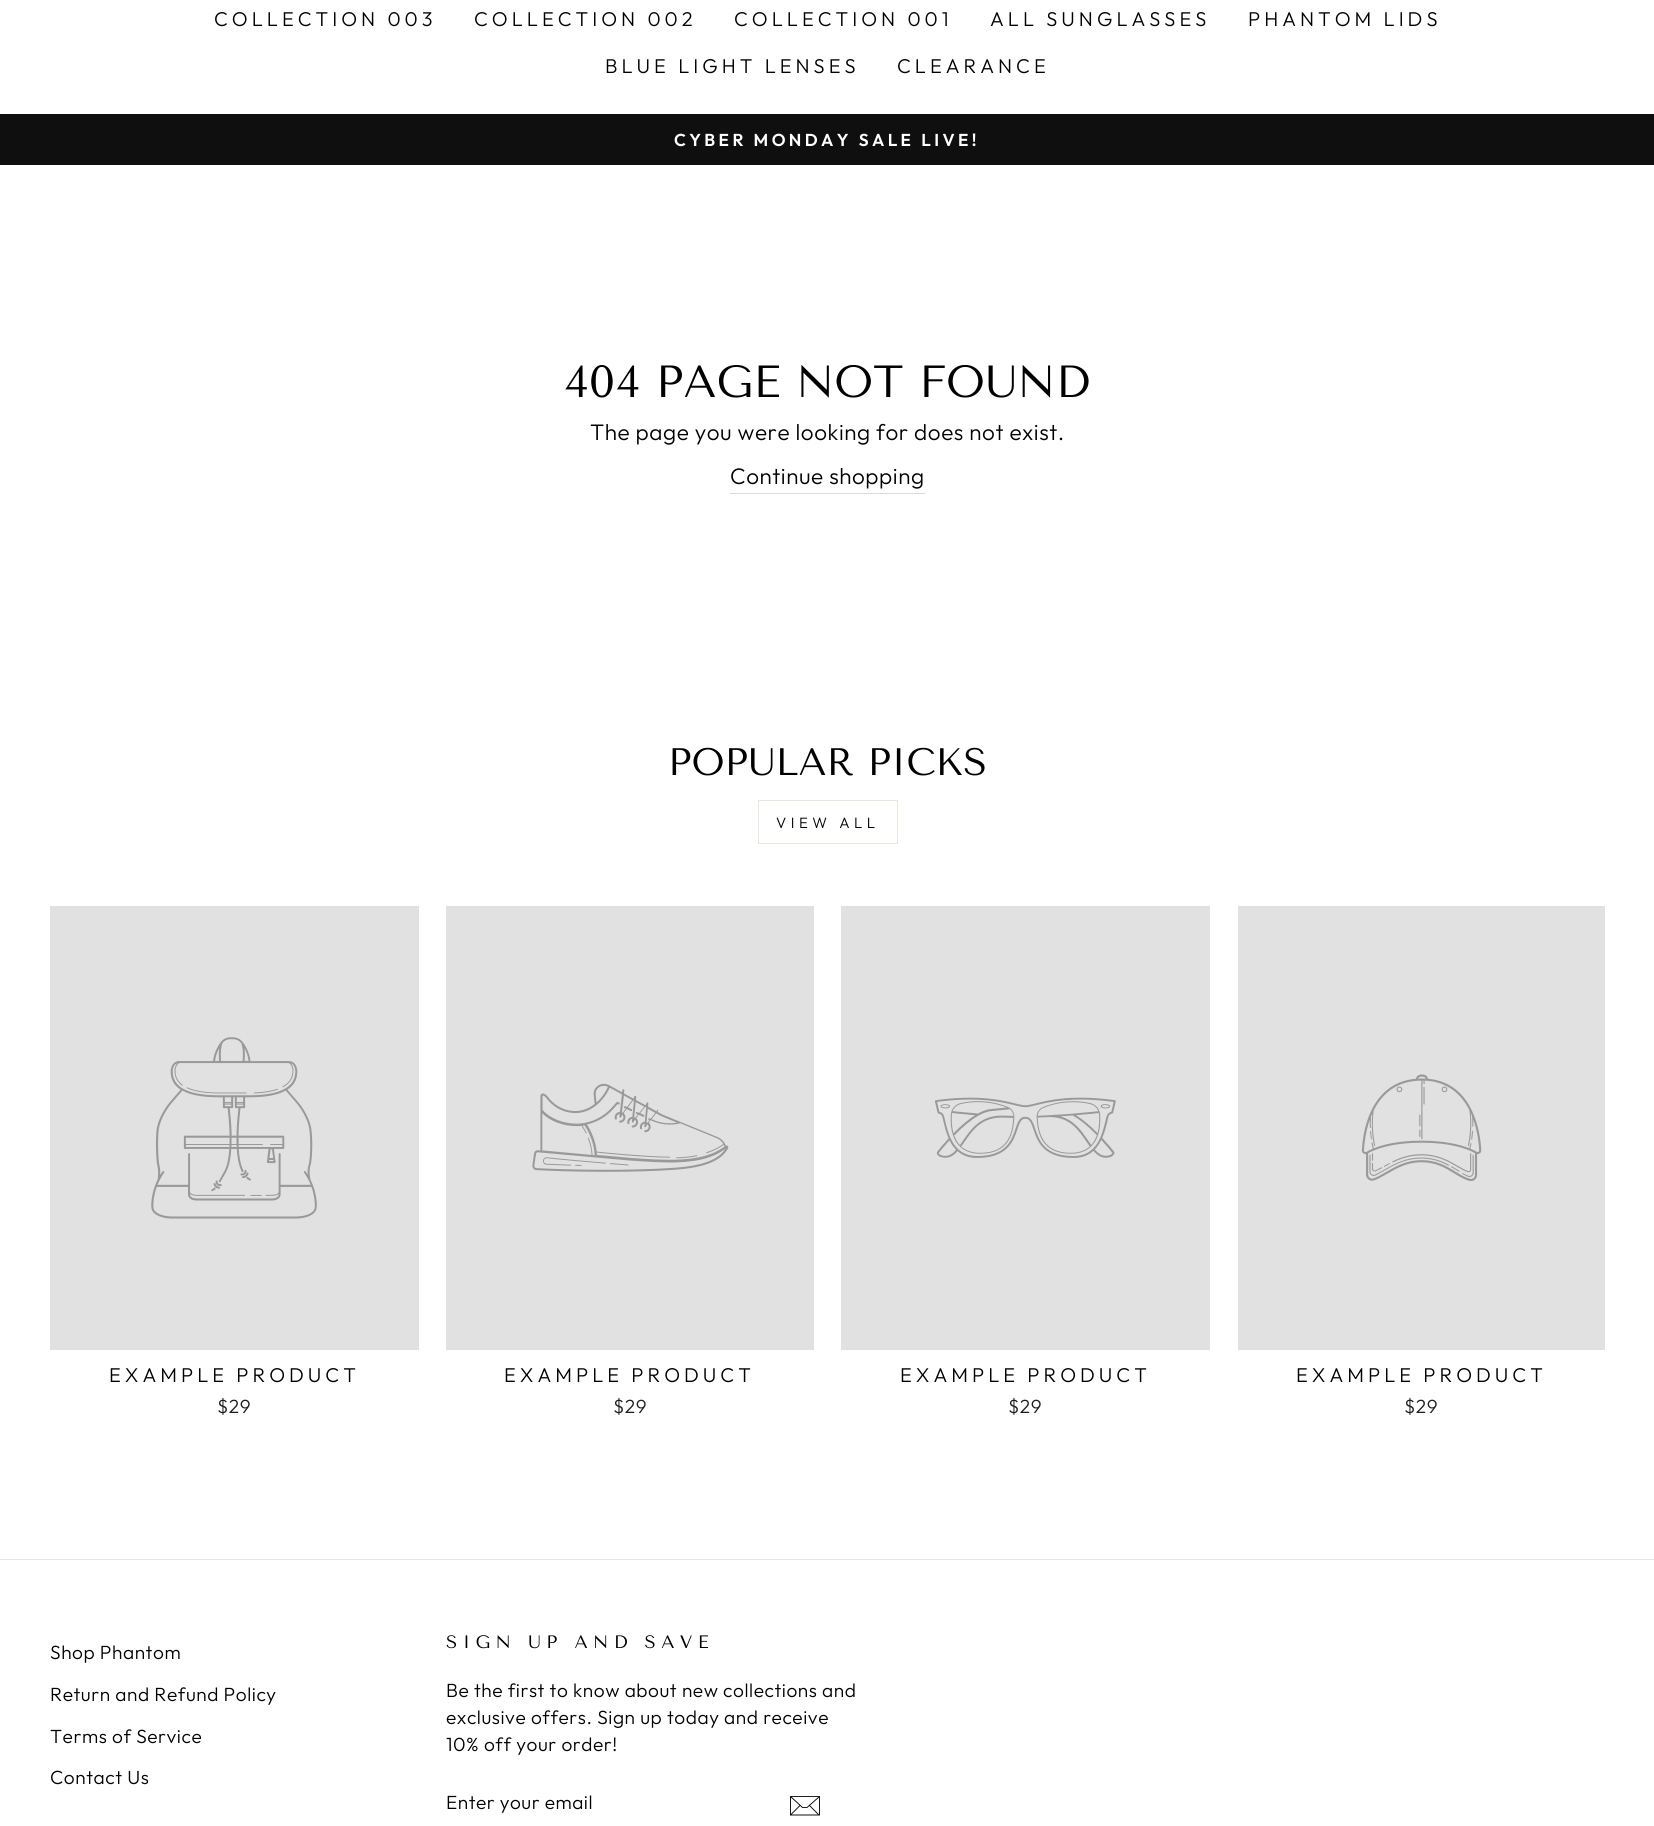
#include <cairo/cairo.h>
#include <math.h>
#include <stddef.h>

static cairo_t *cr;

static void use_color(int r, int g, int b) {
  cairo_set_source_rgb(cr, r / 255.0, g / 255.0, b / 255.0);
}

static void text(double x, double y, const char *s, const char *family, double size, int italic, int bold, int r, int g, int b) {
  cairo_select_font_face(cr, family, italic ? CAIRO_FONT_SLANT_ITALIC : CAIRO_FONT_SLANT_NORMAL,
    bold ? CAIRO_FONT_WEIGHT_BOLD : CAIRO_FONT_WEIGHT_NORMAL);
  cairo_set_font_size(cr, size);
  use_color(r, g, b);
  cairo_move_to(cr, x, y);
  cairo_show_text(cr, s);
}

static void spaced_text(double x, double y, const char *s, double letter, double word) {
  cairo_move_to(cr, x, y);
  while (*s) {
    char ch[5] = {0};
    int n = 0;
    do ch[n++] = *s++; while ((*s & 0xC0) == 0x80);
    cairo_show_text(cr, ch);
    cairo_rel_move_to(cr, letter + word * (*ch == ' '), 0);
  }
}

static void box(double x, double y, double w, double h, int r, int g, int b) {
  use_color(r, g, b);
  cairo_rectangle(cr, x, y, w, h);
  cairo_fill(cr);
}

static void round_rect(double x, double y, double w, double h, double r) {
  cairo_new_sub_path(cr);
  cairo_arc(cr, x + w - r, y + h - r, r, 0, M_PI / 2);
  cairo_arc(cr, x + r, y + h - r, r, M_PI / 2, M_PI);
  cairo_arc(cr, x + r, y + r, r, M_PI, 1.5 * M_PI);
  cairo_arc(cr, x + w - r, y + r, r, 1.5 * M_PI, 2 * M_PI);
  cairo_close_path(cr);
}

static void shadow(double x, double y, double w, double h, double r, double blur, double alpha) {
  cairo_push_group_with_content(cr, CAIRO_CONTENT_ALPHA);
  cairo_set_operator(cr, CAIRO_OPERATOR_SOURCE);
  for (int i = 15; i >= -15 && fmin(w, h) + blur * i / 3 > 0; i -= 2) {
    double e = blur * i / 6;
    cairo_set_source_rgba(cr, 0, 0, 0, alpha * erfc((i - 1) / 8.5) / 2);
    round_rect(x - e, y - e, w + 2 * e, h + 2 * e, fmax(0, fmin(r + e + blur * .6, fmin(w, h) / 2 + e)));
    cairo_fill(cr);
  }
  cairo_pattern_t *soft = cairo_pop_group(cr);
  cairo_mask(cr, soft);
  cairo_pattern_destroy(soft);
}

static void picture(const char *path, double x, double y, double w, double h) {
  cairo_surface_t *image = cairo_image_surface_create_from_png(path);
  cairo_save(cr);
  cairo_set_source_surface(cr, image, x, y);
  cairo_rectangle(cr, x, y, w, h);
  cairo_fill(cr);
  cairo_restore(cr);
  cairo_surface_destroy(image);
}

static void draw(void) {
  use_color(255, 255, 255);
  cairo_paint(cr);
  box(0, 114, 1654, 51, 15, 15, 15);
  use_color(0, 0, 0);
  shadow(0, -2, 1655, 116, 0, 0.5, 0.2);
  box(0, 0, 1654, 114, 255, 255, 255);
  box(730, 493, 195, 1, 217, 217, 217);
  cairo_rectangle(cr, 758.5, 800.5, 139, 43);
  use_color(232, 232, 225);
  cairo_set_line_width(cr, 1);
  cairo_stroke(cr);
  box(50, 906, 369, 444, 225, 225, 225);
  picture("img_01.png", 151, 1037, 166, 182);
  box(446, 906, 368, 444, 225, 225, 225);
  picture("img_02.png", 532, 1083, 197, 89);
  box(841, 906, 369, 444, 225, 225, 225);
  picture("img_03.png", 935, 1097, 181, 61);
  box(1238, 906, 367, 444, 225, 225, 225);
  picture("img_04.png", 1361, 1074, 121, 107);
  box(0, 1559, 1654, 1, 232, 232, 225);
  cairo_new_path(cr);
  cairo_move_to(cr, 819.5, 1815);
  cairo_line_to(cr, 790.5, 1815);
  cairo_line_to(cr, 790.5, 1796.5);
  cairo_line_to(cr, 819.5, 1796.5);
  cairo_close_path(cr);
  cairo_move_to(cr, 790.5, 1796.5);
  cairo_line_to(cr, 802.5, 1807.5);
  cairo_line_to(cr, 807, 1807.5);
  cairo_line_to(cr, 819.5, 1796.5);
  cairo_move_to(cr, 800, 1805.5);
  cairo_line_to(cr, 790.5, 1815);
  cairo_move_to(cr, 819, 1815);
  cairo_line_to(cr, 809.5, 1805.5);
  use_color(0, 0, 0);
  cairo_set_line_width(cr, 0.9);
  cairo_stroke(cr);
  cairo_select_font_face(cr, "Outfit Light", CAIRO_FONT_SLANT_NORMAL, CAIRO_FONT_WEIGHT_NORMAL);
  cairo_set_font_size(cr, 20);
  spaced_text(214, 26, "COLLECTION 003", 4, 0);
  spaced_text(474, 26, "COLLECTION 002", 4, 0);
  spaced_text(734, 26, "COLLECTION 001", 4, 0);
  spaced_text(990, 26, "ALL SUNGLASSES", 4, 0);
  spaced_text(1248, 26, "PHANTOM LIDS", 4, 0);
  spaced_text(605, 73, "BLUE LIGHT LENSES", 4, 0);
  spaced_text(897, 73, "CLEARANCE", 4, 0);
  cairo_select_font_face(cr, "Outfit SemiBold", CAIRO_FONT_SLANT_NORMAL, CAIRO_FONT_WEIGHT_NORMAL);
  cairo_set_font_size(cr, 17.25);
  use_color(255, 255, 255);
  spaced_text(674, 146, "CYBER MONDAY SALE LIVE!", 3.4, 0);
  text(564, 397, "404 PAGE NOT FOUND", "Tenor Sans", 45, 0, 0, 0, 0, 0);
  cairo_select_font_face(cr, "Outfit Light", CAIRO_FONT_SLANT_NORMAL, CAIRO_FONT_WEIGHT_NORMAL);
  cairo_set_font_size(cr, 22.5);
  spaced_text(590, 440, "The page you were looking for does not exist.", 0.55, 0);
  spaced_text(730, 484, "Continue shopping", 0.55, 0);
  text(668, 775, "POPULAR PICKS", "Tenor Sans", 38.25, 0, 0, 0, 0, 0);
  cairo_select_font_face(cr, "Outfit Light", CAIRO_FONT_SLANT_NORMAL, CAIRO_FONT_WEIGHT_NORMAL);
  cairo_set_font_size(cr, 15);
  spaced_text(776, 828, "VIEW ALL", 4.5, 0);
  cairo_set_font_size(cr, 20);
  spaced_text(109, 1382, "EXAMPLE PRODUCT", 4, 0);
  cairo_set_font_size(cr, 19.1);
  use_color(28, 29, 29);
  spaced_text(217, 1413, "$29", 0.55, 0);
  cairo_set_font_size(cr, 20);
  use_color(0, 0, 0);
  spaced_text(504, 1382, "EXAMPLE PRODUCT", 4, 0);
  cairo_set_font_size(cr, 19.1);
  use_color(28, 29, 29);
  spaced_text(613, 1413, "$29", 0.55, 0);
  cairo_set_font_size(cr, 20);
  use_color(0, 0, 0);
  spaced_text(900, 1382, "EXAMPLE PRODUCT", 4, 0);
  cairo_set_font_size(cr, 19.1);
  use_color(28, 29, 29);
  spaced_text(1008, 1413, "$29", 0.55, 0);
  cairo_set_font_size(cr, 20);
  use_color(0, 0, 0);
  spaced_text(1296, 1382, "EXAMPLE PRODUCT", 4, 0);
  cairo_set_font_size(cr, 19.1);
  use_color(28, 29, 29);
  spaced_text(1404, 1413, "$29", 0.55, 0);
  use_color(0, 0, 0);
  spaced_text(50, 1659, "Shop Phantom", 0.55, 0);
  spaced_text(50, 1701, "Return and Refund Policy", 0.55, 0);
  spaced_text(50, 1743, "Terms of Service", 0.55, 0);
  spaced_text(50, 1784, "Contact Us", 0.55, 0);
  cairo_select_font_face(cr, "Tenor Sans", CAIRO_FONT_SLANT_NORMAL, CAIRO_FONT_WEIGHT_NORMAL);
  cairo_set_font_size(cr, 18);
  spaced_text(446, 1648, "SIGN UP AND SAVE", 5.4, 0);
  cairo_select_font_face(cr, "Outfit Light", CAIRO_FONT_SLANT_NORMAL, CAIRO_FONT_WEIGHT_NORMAL);
  cairo_set_font_size(cr, 19.1);
  spaced_text(446, 1697, "Be the first to know about new collections and", 0.55, 0);
  spaced_text(446, 1724, "exclusive offers. Sign up today and receive", 0.55, 0);
  spaced_text(446, 1751, "10% off your order!", 0.55, 0);
  spaced_text(446, 1809, "Enter your email", 0.5, 0);
}

int main(void) {
  cairo_surface_t *surface = cairo_image_surface_create(CAIRO_FORMAT_RGB24, 1654, 1826);
  cr = cairo_create(surface);
  cairo_font_options_t *options = cairo_font_options_create();
  cairo_font_options_set_hint_metrics(options, CAIRO_HINT_METRICS_OFF);
  cairo_font_options_set_hint_style(options, CAIRO_HINT_STYLE_NONE);
  cairo_set_font_options(cr, options);
  cairo_set_miter_limit(cr, 4);
  draw();
  cairo_surface_write_to_png(surface, "out.png");
  cairo_font_options_destroy(options);
  cairo_destroy(cr);
  cairo_surface_destroy(surface);
  return 0;
}
